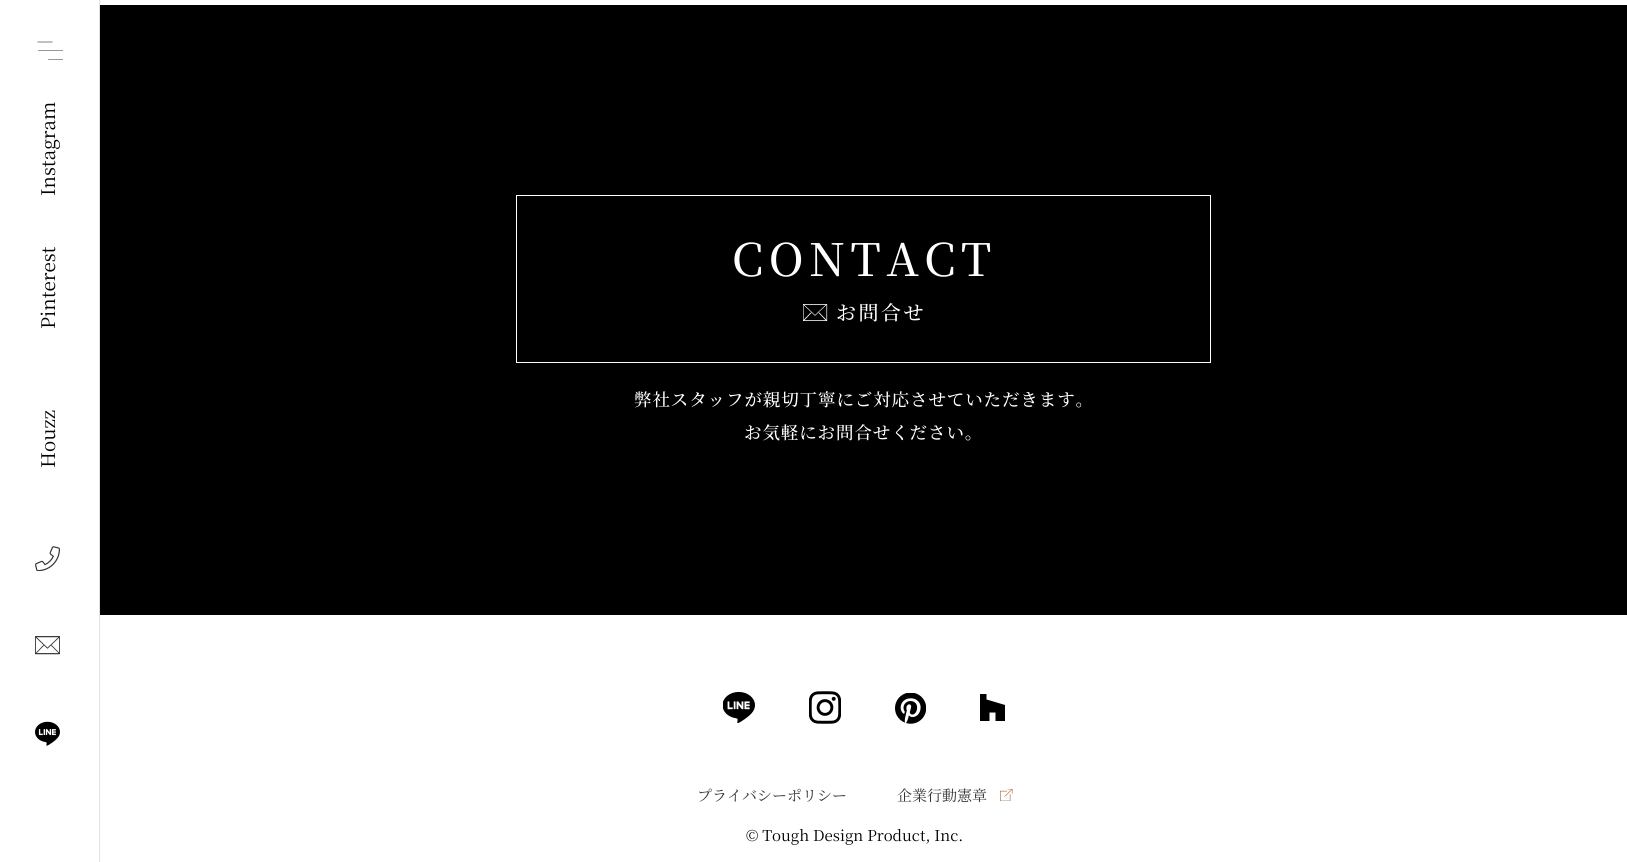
#include <cairo/cairo.h>
#include <math.h>
#include <stddef.h>

static cairo_t *cr;

static void use_color(int r, int g, int b) {
  cairo_set_source_rgb(cr, r / 255.0, g / 255.0, b / 255.0);
}

static void text(double x, double y, const char *s, const char *family, double size, int italic, int bold, int r, int g, int b) {
  cairo_select_font_face(cr, family, italic ? CAIRO_FONT_SLANT_ITALIC : CAIRO_FONT_SLANT_NORMAL,
    bold ? CAIRO_FONT_WEIGHT_BOLD : CAIRO_FONT_WEIGHT_NORMAL);
  cairo_set_font_size(cr, size);
  use_color(r, g, b);
  cairo_move_to(cr, x, y);
  cairo_show_text(cr, s);
}

static void spaced_text(double x, double y, const char *s, double letter, double word) {
  cairo_move_to(cr, x, y);
  while (*s) {
    char ch[5] = {0};
    int n = 0;
    do ch[n++] = *s++; while ((*s & 0xC0) == 0x80);
    cairo_show_text(cr, ch);
    cairo_rel_move_to(cr, letter + word * (*ch == ' '), 0);
  }
}

static void box(double x, double y, double w, double h, int r, int g, int b) {
  use_color(r, g, b);
  cairo_rectangle(cr, x, y, w, h);
  cairo_fill(cr);
}

static void picture(const char *path, double x, double y, double w, double h) {
  cairo_surface_t *image = cairo_image_surface_create_from_png(path);
  cairo_save(cr);
  cairo_set_source_surface(cr, image, x, y);
  cairo_rectangle(cr, x, y, w, h);
  cairo_fill(cr);
  cairo_restore(cr);
  cairo_surface_destroy(image);
}

static void draw(void) {
  use_color(255, 255, 255);
  cairo_paint(cr);
  box(99, 0, 1, 862, 225, 225, 225);
  box(38, 50, 25, 1, 153, 153, 153);
  cairo_new_path(cr);
  cairo_move_to(cr, 37.5, 42);
  cairo_line_to(cr, 52.5, 42);
  cairo_set_line_width(cr, 1.2);
  cairo_stroke(cr);
  box(48, 59, 15, 1, 153, 153, 153);
  picture("img_01.png", 35, 546, 25, 25);
  picture("img_02.png", 35, 636, 25, 19);
  picture("img_03.png", 35, 721, 25, 25);
  box(100, 5, 1527, 610, 0, 0, 0);
  cairo_rectangle(cr, 516.5, 195.5, 694, 167);
  use_color(255, 255, 255);
  cairo_set_line_width(cr, 1);
  cairo_stroke(cr);
  picture("img_04.png", 803, 304, 25, 17);
  picture("img_05.png", 723, 691, 32, 32);
  picture("img_06.png", 809, 691, 32, 33);
  picture("img_07.png", 895, 693, 31, 31);
  cairo_save(cr);
  cairo_rectangle(cr, 980, 694, 25, 27);
  cairo_clip(cr);
  use_color(0, 0, 0);
  cairo_new_path(cr);
  cairo_move_to(cr, 995.5, 722.5);
  cairo_line_to(cr, 1005, 722.5);
  cairo_line_to(cr, 1005, 705);
  cairo_line_to(cr, 986.5, 699.5);
  cairo_line_to(cr, 986.5, 692.5);
  cairo_line_to(cr, 980, 692.5);
  cairo_line_to(cr, 980, 722.5);
  cairo_line_to(cr, 989.5, 722.5);
  cairo_line_to(cr, 989.5, 712.5);
  cairo_line_to(cr, 995.5, 712.5);
  cairo_close_path(cr);
  cairo_fill(cr);
  cairo_restore(cr);
  picture("img_08.png", 1000, 789, 13, 12);
  cairo_save(cr);
  cairo_translate(cr, 55, 196);
  cairo_rotate(cr, -90 * M_PI / 180);
  text(0, 0, "Instagram", "Noto Serif JP", 18.75, 0, 0, 0, 0, 0);
  cairo_restore(cr);
  cairo_save(cr);
  cairo_translate(cr, 55, 329);
  cairo_rotate(cr, -90 * M_PI / 180);
  text(0, 0, "Pinterest", "Noto Serif JP", 18.75, 0, 0, 0, 0, 0);
  cairo_restore(cr);
  cairo_save(cr);
  cairo_translate(cr, 55, 468);
  cairo_rotate(cr, -90 * M_PI / 180);
  text(0, 0, "Houzz", "Noto Serif JP", 18.75, 0, 0, 0, 0, 0);
  cairo_restore(cr);
  cairo_select_font_face(cr, "Noto Serif JP Medium", CAIRO_FONT_SLANT_NORMAL, CAIRO_FONT_WEIGHT_NORMAL);
  cairo_set_font_size(cr, 45);
  use_color(255, 255, 255);
  spaced_text(732, 276, "CONTACT", 5.5, 0);
  cairo_set_font_size(cr, 20);
  spaced_text(836, 320, "お問合せ", 2.5, 0);
  cairo_set_font_size(cr, 17.5);
  spaced_text(634, 406, "弊社スタッフが親切丁寧にご対応させていただきます。", 0.9, 0);
  spaced_text(744, 439, "お気軽にお問合せください。", 0.9, 0);
  text(697, 801, "プライバシーポリシー", "Noto Serif JP", 15, 0, 0, 51, 51, 51);
  text(897, 801, "企業行動憲章", "Noto Serif JP", 15, 0, 0, 51, 51, 51);
  text(746, 841, "© Tough Design Product, Inc.", "Noto Serif JP", 15, 0, 0, 0, 0, 0);
}

int main(void) {
  cairo_surface_t *surface = cairo_image_surface_create(CAIRO_FORMAT_RGB24, 1627, 862);
  cr = cairo_create(surface);
  cairo_font_options_t *options = cairo_font_options_create();
  cairo_font_options_set_hint_metrics(options, CAIRO_HINT_METRICS_OFF);
  cairo_font_options_set_hint_style(options, CAIRO_HINT_STYLE_NONE);
  cairo_set_font_options(cr, options);
  cairo_set_miter_limit(cr, 4);
  draw();
  cairo_surface_write_to_png(surface, "out.png");
  cairo_font_options_destroy(options);
  cairo_destroy(cr);
  cairo_surface_destroy(surface);
  return 0;
}
